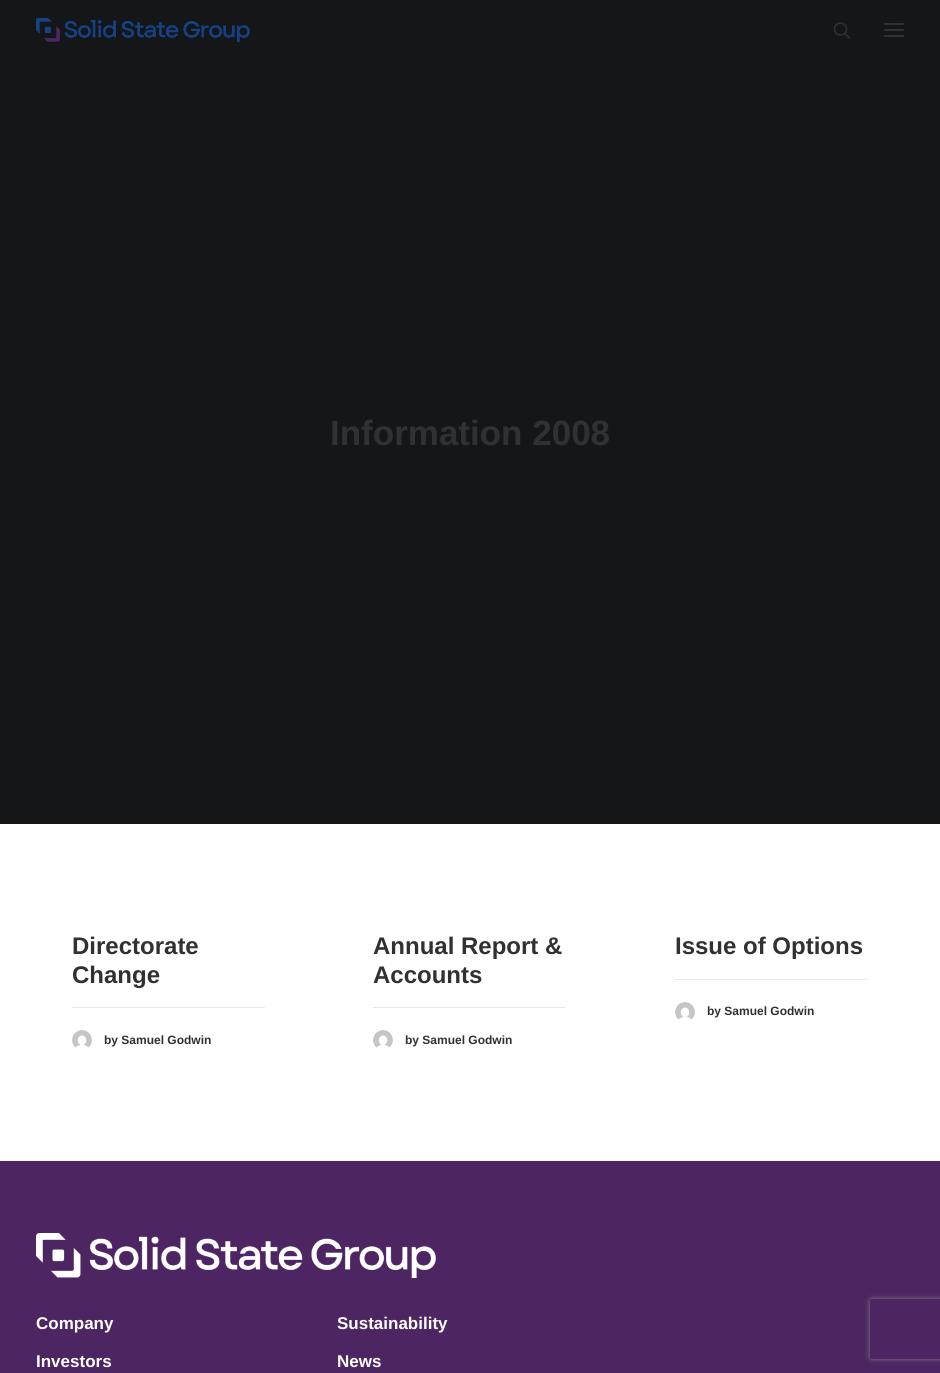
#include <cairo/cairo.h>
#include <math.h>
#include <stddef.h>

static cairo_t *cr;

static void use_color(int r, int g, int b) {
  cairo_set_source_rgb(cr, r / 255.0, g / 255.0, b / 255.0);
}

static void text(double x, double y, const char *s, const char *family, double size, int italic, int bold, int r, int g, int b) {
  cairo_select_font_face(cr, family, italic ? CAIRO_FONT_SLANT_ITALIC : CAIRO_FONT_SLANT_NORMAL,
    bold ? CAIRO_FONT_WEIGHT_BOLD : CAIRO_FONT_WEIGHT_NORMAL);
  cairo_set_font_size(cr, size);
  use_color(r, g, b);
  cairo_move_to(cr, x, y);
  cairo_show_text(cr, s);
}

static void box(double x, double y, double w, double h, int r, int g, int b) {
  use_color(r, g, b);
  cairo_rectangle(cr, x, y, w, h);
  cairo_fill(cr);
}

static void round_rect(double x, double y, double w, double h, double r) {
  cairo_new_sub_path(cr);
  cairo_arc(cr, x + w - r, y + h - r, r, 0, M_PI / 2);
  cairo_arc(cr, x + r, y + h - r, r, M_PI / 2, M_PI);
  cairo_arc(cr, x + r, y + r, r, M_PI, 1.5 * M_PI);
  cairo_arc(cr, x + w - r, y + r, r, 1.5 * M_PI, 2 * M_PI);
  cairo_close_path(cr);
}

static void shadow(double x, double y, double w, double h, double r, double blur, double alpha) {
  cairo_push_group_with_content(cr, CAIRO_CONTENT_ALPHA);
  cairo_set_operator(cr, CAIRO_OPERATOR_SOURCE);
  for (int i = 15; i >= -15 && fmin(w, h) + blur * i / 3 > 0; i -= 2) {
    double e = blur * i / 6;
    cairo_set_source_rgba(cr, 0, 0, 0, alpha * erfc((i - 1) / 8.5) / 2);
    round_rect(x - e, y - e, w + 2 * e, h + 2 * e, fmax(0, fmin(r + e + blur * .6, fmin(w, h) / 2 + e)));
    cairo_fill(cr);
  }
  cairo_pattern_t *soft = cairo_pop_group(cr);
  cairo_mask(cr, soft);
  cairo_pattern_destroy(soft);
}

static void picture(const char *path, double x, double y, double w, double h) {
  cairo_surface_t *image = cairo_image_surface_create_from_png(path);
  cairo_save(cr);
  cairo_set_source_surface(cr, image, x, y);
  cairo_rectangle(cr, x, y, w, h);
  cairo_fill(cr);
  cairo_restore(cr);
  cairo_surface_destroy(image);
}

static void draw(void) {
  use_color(20, 22, 24);
  cairo_paint(cr);
  picture("img_01.png", 36, 18, 214, 24);
  picture("img_02.png", 833, 22, 17, 17);
  use_color(48, 49, 51);
  round_rect(884, 29, 20, 2, 1);
  cairo_fill(cr);
  round_rect(884, 23, 20, 2, 1);
  cairo_fill(cr);
  round_rect(884, 35, 20, 2, 1);
  cairo_fill(cr);
  box(0, 824, 940, 337, 255, 255, 255);
  box(72, 1007, 193, 1, 234, 234, 234);
  picture("img_03.png", 72, 1030, 20, 18);
  box(373, 1007, 193, 1, 234, 234, 234);
  picture("img_04.png", 373, 1030, 20, 18);
  box(675, 979, 193, 1, 234, 234, 234);
  picture("img_03.png", 675, 1002, 20, 18);
  box(0, 1161, 940, 212, 76, 37, 98);
  picture("img_05.png", 36, 1233, 400, 45);
  cairo_save(cr);
  cairo_set_fill_rule(cr, CAIRO_FILL_RULE_EVEN_ODD);
  cairo_new_path(cr);
  cairo_move_to(cr, 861, 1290);
  cairo_line_to(cr, 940, 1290);
  cairo_line_to(cr, 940, 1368);
  cairo_line_to(cr, 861, 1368);
  cairo_close_path(cr);
  cairo_move_to(cr, 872, 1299);
  cairo_line_to(cr, 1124, 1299);
  cairo_curve_to(cr, 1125, 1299, 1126, 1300, 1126, 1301);
  cairo_line_to(cr, 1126, 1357);
  cairo_curve_to(cr, 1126, 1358, 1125, 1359, 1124, 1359);
  cairo_line_to(cr, 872, 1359);
  cairo_curve_to(cr, 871, 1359, 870, 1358, 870, 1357);
  cairo_line_to(cr, 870, 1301);
  cairo_curve_to(cr, 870, 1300, 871, 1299, 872, 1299);
  cairo_close_path(cr);
  cairo_clip(cr);
  use_color(128, 128, 128);
  shadow(870, 1299, 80, 60, 2, 2.5, 1);
  cairo_restore(cr);
  text(330, 445, "Information 2008", "Liberation Sans", 35, 0, 1, 48, 49, 51);
  text(72, 954, "Directorate", "Liberation Sans", 24, 0, 1, 48, 49, 51);
  text(72, 983, "Change", "Liberation Sans", 24, 0, 1, 48, 49, 51);
  text(104, 1044, "by Samuel Godwin", "Liberation Sans", 12, 0, 1, 48, 49, 51);
  text(373, 954, "Annual Report &", "Liberation Sans", 24, 0, 1, 48, 49, 51);
  text(373, 983, "Accounts", "Liberation Sans", 24, 0, 1, 48, 49, 51);
  text(405, 1044, "by Samuel Godwin", "Liberation Sans", 12, 0, 1, 48, 49, 51);
  text(675, 954, "Issue of Options", "Liberation Sans", 24, 0, 1, 48, 49, 51);
  text(707, 1015, "by Samuel Godwin", "Liberation Sans", 12, 0, 1, 48, 49, 51);
  text(36, 1329, "Company", "Liberation Sans", 17, 0, 1, 255, 255, 255);
  text(36, 1367, "Investors", "Liberation Sans", 17, 0, 1, 255, 255, 255);
  text(337, 1329, "Sustainability", "Liberation Sans", 17, 0, 1, 255, 255, 255);
  text(337, 1367, "News", "Liberation Sans", 17, 0, 1, 255, 255, 255);
}

int main(void) {
  cairo_surface_t *surface = cairo_image_surface_create(CAIRO_FORMAT_RGB24, 940, 1373);
  cr = cairo_create(surface);
  cairo_font_options_t *options = cairo_font_options_create();
  cairo_font_options_set_hint_metrics(options, CAIRO_HINT_METRICS_OFF);
  cairo_font_options_set_hint_style(options, CAIRO_HINT_STYLE_NONE);
  cairo_set_font_options(cr, options);
  cairo_set_miter_limit(cr, 4);
  draw();
  cairo_surface_write_to_png(surface, "out.png");
  cairo_font_options_destroy(options);
  cairo_destroy(cr);
  cairo_surface_destroy(surface);
  return 0;
}
